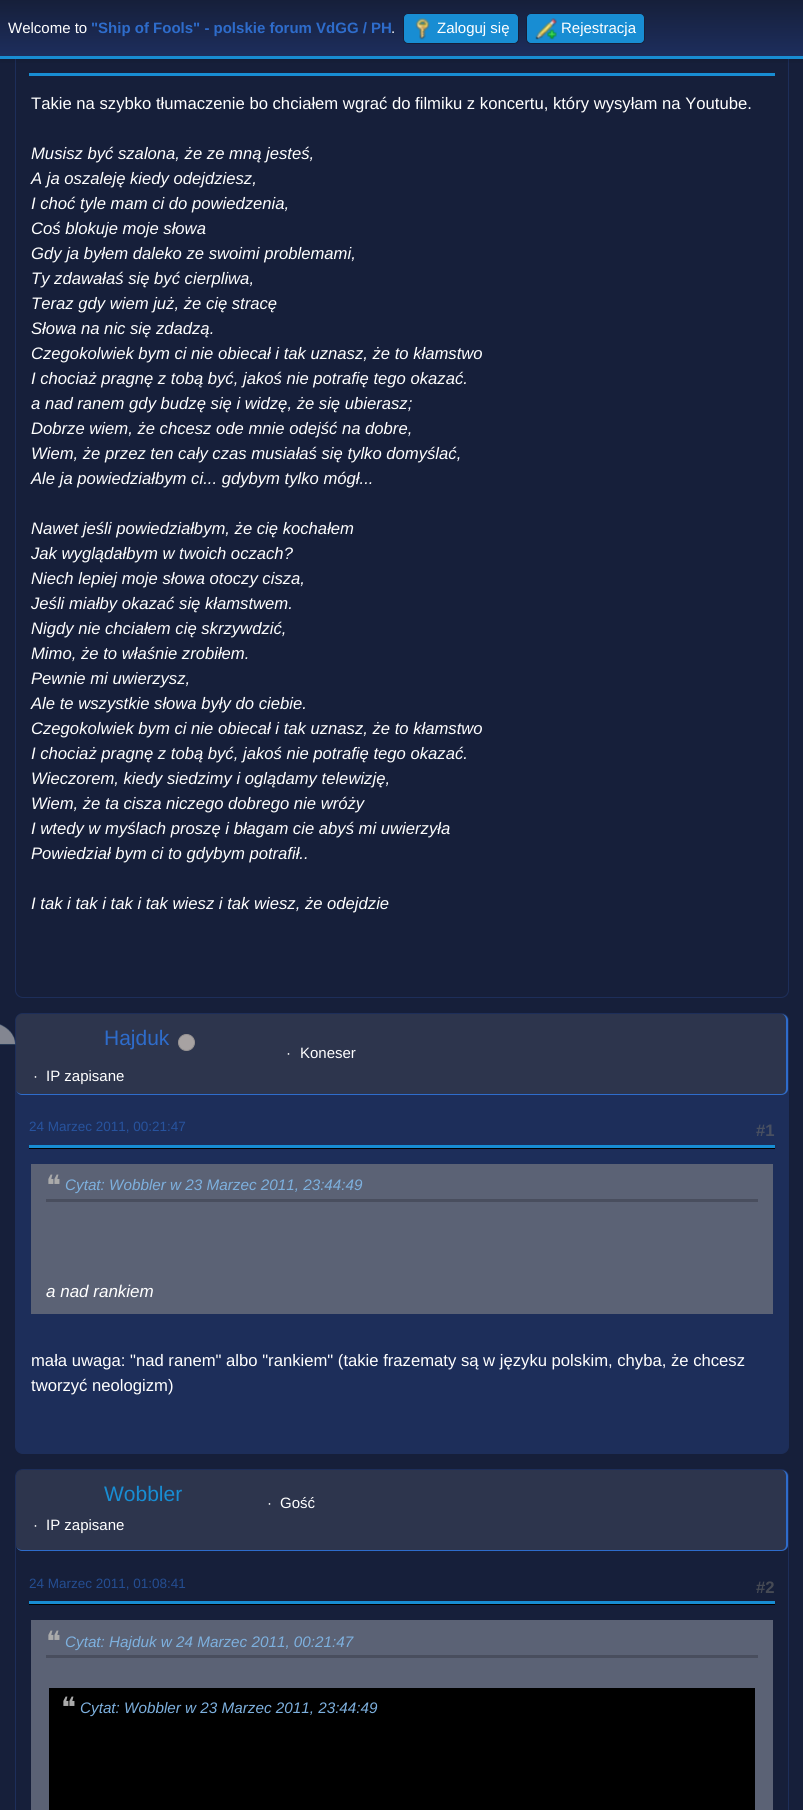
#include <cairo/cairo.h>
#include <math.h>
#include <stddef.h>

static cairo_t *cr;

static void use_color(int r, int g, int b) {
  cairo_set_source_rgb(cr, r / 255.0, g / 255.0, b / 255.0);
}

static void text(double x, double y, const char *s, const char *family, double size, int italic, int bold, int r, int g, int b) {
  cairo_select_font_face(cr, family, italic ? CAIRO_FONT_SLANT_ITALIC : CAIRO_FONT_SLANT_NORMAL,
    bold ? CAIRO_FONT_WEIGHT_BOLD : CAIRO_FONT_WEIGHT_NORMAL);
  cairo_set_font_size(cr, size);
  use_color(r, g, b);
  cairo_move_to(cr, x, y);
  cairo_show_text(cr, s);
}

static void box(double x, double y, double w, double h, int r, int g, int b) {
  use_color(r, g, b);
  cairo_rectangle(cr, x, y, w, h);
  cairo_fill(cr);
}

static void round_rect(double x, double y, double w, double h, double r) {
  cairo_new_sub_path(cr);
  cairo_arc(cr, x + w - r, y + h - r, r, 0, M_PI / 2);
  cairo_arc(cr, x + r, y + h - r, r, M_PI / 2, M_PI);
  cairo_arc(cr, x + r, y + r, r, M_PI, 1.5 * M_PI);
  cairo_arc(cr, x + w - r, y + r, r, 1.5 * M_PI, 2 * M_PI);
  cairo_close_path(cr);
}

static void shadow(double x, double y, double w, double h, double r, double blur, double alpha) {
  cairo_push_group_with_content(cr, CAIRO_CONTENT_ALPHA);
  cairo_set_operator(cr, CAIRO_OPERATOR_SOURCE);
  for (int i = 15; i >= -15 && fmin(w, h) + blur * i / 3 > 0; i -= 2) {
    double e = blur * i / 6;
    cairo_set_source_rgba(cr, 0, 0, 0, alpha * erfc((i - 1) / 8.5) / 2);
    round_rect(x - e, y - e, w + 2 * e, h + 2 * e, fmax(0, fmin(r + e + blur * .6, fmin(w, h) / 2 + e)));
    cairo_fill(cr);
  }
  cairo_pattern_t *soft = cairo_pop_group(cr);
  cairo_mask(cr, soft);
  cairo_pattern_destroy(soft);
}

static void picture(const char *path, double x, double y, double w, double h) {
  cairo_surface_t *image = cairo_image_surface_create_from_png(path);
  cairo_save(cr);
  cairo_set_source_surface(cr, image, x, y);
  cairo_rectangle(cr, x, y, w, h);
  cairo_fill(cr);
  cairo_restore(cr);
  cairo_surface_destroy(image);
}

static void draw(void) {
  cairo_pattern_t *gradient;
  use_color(22, 31, 58);
  cairo_paint(cr);
  round_rect(15.5, -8.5, 773, 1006, 7.5);
  use_color(29, 46, 90);
  cairo_set_line_width(cr, 1);
  cairo_stroke(cr);
  use_color(0, 0, 0);
  shadow(0, 1, 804, 59, 0, 2.5, 0.16);
  gradient = cairo_pattern_create_linear(402, 0, 402, 56);
  cairo_pattern_add_color_stop_rgba(gradient, 0, 0.086, 0.122, 0.227, 1);
  cairo_pattern_add_color_stop_rgba(gradient, 1, 0.114, 0.18, 0.365, 1);
  cairo_set_source(cr, gradient);
  cairo_pattern_destroy(gradient);
  cairo_rectangle(cr, 0, 0, 803, 56);
  cairo_fill(cr);
  box(0, 56, 803, 3, 24, 141, 211);
  round_rect(403.5, 13.5, 115, 30, 4.5);
  cairo_fill_preserve(cr);
  use_color(22, 31, 58);
  cairo_stroke(cr);
  picture("img_01.png", 415, 18, 15, 22);
  use_color(24, 141, 211);
  round_rect(526.5, 13.5, 118, 30, 4.5);
  cairo_fill_preserve(cr);
  use_color(22, 31, 58);
  cairo_stroke(cr);
  picture("img_02.png", 535, 18, 22, 22);
  box(29, 73, 746, 3, 24, 141, 211);
  use_color(29, 46, 90);
  round_rect(15.5, 1013.5, 773, 440, 7.5);
  cairo_fill_preserve(cr);
  cairo_stroke(cr);
  use_color(45, 53, 77);
  round_rect(16, 1014, 772, 81, 6);
  cairo_fill(cr);
  use_color(46, 108, 203);
  cairo_set_fill_rule(cr, CAIRO_FILL_RULE_EVEN_ODD);
  cairo_new_path(cr);
  cairo_move_to(cr, 22, 1014);
  cairo_line_to(cr, 781, 1014);
  cairo_curve_to(cr, 785, 1014, 788, 1017, 788, 1020);
  cairo_line_to(cr, 788, 1089);
  cairo_curve_to(cr, 788, 1092, 785, 1095, 781, 1095);
  cairo_line_to(cr, 22, 1095);
  cairo_curve_to(cr, 19, 1095, 16, 1092, 16, 1089);
  cairo_line_to(cr, 16, 1020);
  cairo_curve_to(cr, 16, 1017, 19, 1014, 22, 1014);
  cairo_close_path(cr);
  cairo_move_to(cr, 22, 1014);
  cairo_line_to(cr, 781, 1014);
  cairo_curve_to(cr, 784, 1014, 786, 1017, 786, 1020);
  cairo_line_to(cr, 786, 1089);
  cairo_curve_to(cr, 786, 1092, 784, 1094, 781, 1094);
  cairo_line_to(cr, 22, 1094);
  cairo_curve_to(cr, 19, 1094, 16, 1092, 16, 1089);
  cairo_line_to(cr, 16, 1020);
  cairo_curve_to(cr, 16, 1017, 19, 1014, 22, 1014);
  cairo_close_path(cr);
  cairo_fill(cr);
  use_color(167, 162, 162);
  cairo_arc(cr, 186.5, 1042.5, 8, 0, 2 * M_PI);
  cairo_fill_preserve(cr);
  use_color(150, 146, 146);
  cairo_stroke(cr);
  picture("img_03.png", 0, 1024, 16, 21);
  box(29, 1148, 746, 1, 0, 0, 0);
  box(29, 1145, 746, 3, 24, 141, 211);
  box(34, 1165, 736, 148, 91, 98, 117);
  box(31, 1164, 742, 1, 91, 98, 117);
  box(770, 1164, 3, 150, 91, 98, 117);
  box(31, 1313, 742, 1, 91, 98, 117);
  box(31, 1164, 3, 150, 91, 98, 117);
  box(46, 1199, 712, 3, 73, 78, 94);
  round_rect(15.5, 1469.5, 773, 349, 7.5);
  use_color(29, 46, 90);
  cairo_stroke(cr);
  use_color(45, 53, 77);
  round_rect(16, 1470, 772, 81, 6);
  cairo_fill(cr);
  use_color(46, 108, 203);
  cairo_new_path(cr);
  cairo_move_to(cr, 22, 1470);
  cairo_line_to(cr, 781, 1470);
  cairo_curve_to(cr, 785, 1470, 788, 1473, 788, 1476);
  cairo_line_to(cr, 788, 1545);
  cairo_curve_to(cr, 788, 1548, 785, 1551, 781, 1551);
  cairo_line_to(cr, 22, 1551);
  cairo_curve_to(cr, 19, 1551, 16, 1548, 16, 1545);
  cairo_line_to(cr, 16, 1476);
  cairo_curve_to(cr, 16, 1473, 19, 1470, 22, 1470);
  cairo_close_path(cr);
  cairo_move_to(cr, 22, 1470);
  cairo_line_to(cr, 781, 1470);
  cairo_curve_to(cr, 784, 1470, 786, 1473, 786, 1476);
  cairo_line_to(cr, 786, 1545);
  cairo_curve_to(cr, 786, 1548, 784, 1550, 781, 1550);
  cairo_line_to(cr, 22, 1550);
  cairo_curve_to(cr, 19, 1550, 16, 1548, 16, 1545);
  cairo_line_to(cr, 16, 1476);
  cairo_curve_to(cr, 16, 1473, 19, 1470, 22, 1470);
  cairo_close_path(cr);
  cairo_fill(cr);
  box(29, 1604, 746, 1, 0, 0, 0);
  box(29, 1601, 746, 3, 24, 141, 211);
  box(34, 1621, 736, 189, 91, 98, 117);
  box(31, 1620, 742, 1, 91, 98, 117);
  box(770, 1620, 3, 190, 91, 98, 117);
  box(31, 1620, 3, 190, 91, 98, 117);
  box(46, 1655, 712, 3, 73, 78, 94);
  box(49, 1688, 706, 122, 0, 0, 0);
  text(8, 33, "Welcome to", "Liberation Sans", 15, 0, 0, 255, 255, 255);
  text(91, 33, "\"Ship of Fools\" - polskie forum VdGG / PH", "Liberation Sans", 15, 0, 1, 46, 108, 203);
  text(391, 33, ".", "Liberation Sans", 15, 0, 0, 255, 255, 255);
  text(437, 33, "Zaloguj się", "Liberation Sans", 15, 0, 0, 255, 255, 255);
  text(561, 33, "Rejestracja", "Liberation Sans", 15, 0, 0, 255, 255, 255);
  text(31, 109, "Takie na szybko tłumaczenie bo chciałem wgrać do filmiku z koncertu, który wysyłam na Youtube.", "Liberation Sans", 16.65, 0, 0, 255, 255, 255);
  text(31, 159, "Musisz być szalona, że ze mną jesteś,", "Liberation Sans", 16.65, 1, 0, 255, 255, 255);
  text(31, 184, "A ja oszaleję kiedy odejdziesz,", "Liberation Sans", 16.65, 1, 0, 255, 255, 255);
  text(31, 209, "I choć tyle mam ci do powiedzenia,", "Liberation Sans", 16.65, 1, 0, 255, 255, 255);
  text(31, 234, "Coś blokuje moje słowa", "Liberation Sans", 16.65, 1, 0, 255, 255, 255);
  text(31, 259, "Gdy ja byłem daleko ze swoimi problemami,", "Liberation Sans", 16.65, 1, 0, 255, 255, 255);
  text(31, 284, "Ty zdawałaś się być cierpliwa,", "Liberation Sans", 16.65, 1, 0, 255, 255, 255);
  text(31, 309, "Teraz gdy wiem już, że cię stracę", "Liberation Sans", 16.65, 1, 0, 255, 255, 255);
  text(31, 334, "Słowa na nic się zdadzą.", "Liberation Sans", 16.65, 1, 0, 255, 255, 255);
  text(31, 359, "Czegokolwiek bym ci nie obiecał i tak uznasz, że to kłamstwo", "Liberation Sans", 16.65, 1, 0, 255, 255, 255);
  text(31, 384, "I chociaż pragnę z tobą być, jakoś nie potrafię tego okazać.", "Liberation Sans", 16.65, 1, 0, 255, 255, 255);
  text(31, 409, "a nad ranem gdy budzę się i widzę, że się ubierasz;", "Liberation Sans", 16.65, 1, 0, 255, 255, 255);
  text(31, 434, "Dobrze wiem, że chcesz ode mnie odejść na dobre,", "Liberation Sans", 16.65, 1, 0, 255, 255, 255);
  text(31, 459, "Wiem, że przez ten cały czas musiałaś się tylko domyślać,", "Liberation Sans", 16.65, 1, 0, 255, 255, 255);
  text(31, 484, "Ale ja powiedziałbym ci... gdybym tylko mógł...", "Liberation Sans", 16.65, 1, 0, 255, 255, 255);
  text(31, 534, "Nawet jeśli powiedziałbym, że cię kochałem", "Liberation Sans", 16.65, 1, 0, 255, 255, 255);
  text(31, 559, "Jak wyglądałbym w twoich oczach?", "Liberation Sans", 16.65, 1, 0, 255, 255, 255);
  text(31, 584, "Niech lepiej moje słowa otoczy cisza,", "Liberation Sans", 16.65, 1, 0, 255, 255, 255);
  text(31, 609, "Jeśli miałby okazać się kłamstwem.", "Liberation Sans", 16.65, 1, 0, 255, 255, 255);
  text(31, 634, "Nigdy nie chciałem cię skrzywdzić,", "Liberation Sans", 16.65, 1, 0, 255, 255, 255);
  text(31, 659, "Mimo, że to właśnie zrobiłem.", "Liberation Sans", 16.65, 1, 0, 255, 255, 255);
  text(31, 684, "Pewnie mi uwierzysz,", "Liberation Sans", 16.65, 1, 0, 255, 255, 255);
  text(31, 709, "Ale te wszystkie słowa były do ciebie.", "Liberation Sans", 16.65, 1, 0, 255, 255, 255);
  text(31, 734, "Czegokolwiek bym ci nie obiecał i tak uznasz, że to kłamstwo", "Liberation Sans", 16.65, 1, 0, 255, 255, 255);
  text(31, 759, "I chociaż pragnę z tobą być, jakoś nie potrafię tego okazać.", "Liberation Sans", 16.65, 1, 0, 255, 255, 255);
  text(31, 784, "Wieczorem, kiedy siedzimy i oglądamy telewizję,", "Liberation Sans", 16.65, 1, 0, 255, 255, 255);
  text(31, 809, "Wiem, że ta cisza niczego dobrego nie wróży", "Liberation Sans", 16.65, 1, 0, 255, 255, 255);
  text(31, 834, "I wtedy w myślach proszę i błagam cie abyś mi uwierzyła", "Liberation Sans", 16.65, 1, 0, 255, 255, 255);
  text(31, 859, "Powiedział bym ci to gdybym potrafił..", "Liberation Sans", 16.65, 1, 0, 255, 255, 255);
  text(31, 909, "I tak i tak i tak i tak wiesz i tak wiesz, że odejdzie", "Liberation Sans", 16.65, 1, 0, 255, 255, 255);
  text(104, 1045, "Hajduk", "Liberation Sans", 21, 0, 0, 46, 108, 203);
  text(286, 1058, "·", "Liberation Sans", 15, 0, 0, 255, 255, 255);
  text(300, 1058, "Koneser", "Liberation Sans", 15, 0, 0, 255, 255, 255);
  text(33, 1081, "·", "Liberation Sans", 15, 0, 0, 255, 255, 255);
  text(46, 1081, "IP zapisane", "Liberation Sans", 15, 0, 0, 255, 255, 255);
  text(29, 1131, "24 Marzec 2011, 00:21:47", "Liberation Sans", 13.5, 0, 0, 39, 83, 158);
  text(756, 1136, "#1", "Liberation Sans", 16.65, 0, 1, 73, 80, 97);
  text(46, 1195, "❝", "DejaVu Sans", 28, 0, 0, 170, 170, 170);
  text(65, 1190, "Cytat: Wobbler w 23 Marzec 2011, 23:44:49", "Liberation Sans", 15.25, 1, 0, 125, 176, 222);
  text(46, 1297, "a nad rankiem", "Liberation Sans", 17, 1, 0, 255, 255, 255);
  text(31, 1366, "mała uwaga: \"nad ranem\" albo \"rankiem\" (takie frazematy są w języku polskim, chyba, że chcesz", "Liberation Sans", 16.65, 0, 0, 255, 255, 255);
  text(31, 1391, "tworzyć neologizm)", "Liberation Sans", 16.65, 0, 0, 255, 255, 255);
  text(104, 1501, "Wobbler", "Liberation Sans", 21, 0, 0, 24, 141, 211);
  text(267, 1508, "·", "Liberation Sans", 15, 0, 0, 255, 255, 255);
  text(280, 1508, "Gość", "Liberation Sans", 15, 0, 0, 255, 255, 255);
  text(33, 1530, "·", "Liberation Sans", 15, 0, 0, 255, 255, 255);
  text(46, 1530, "IP zapisane", "Liberation Sans", 15, 0, 0, 255, 255, 255);
  text(29, 1588, "24 Marzec 2011, 01:08:41", "Liberation Sans", 13.5, 0, 0, 36, 77, 145);
  text(756, 1593, "#2", "Liberation Sans", 16.65, 0, 1, 70, 74, 84);
  text(46, 1651, "❝", "DejaVu Sans", 28, 0, 0, 170, 170, 170);
  text(65, 1647, "Cytat: Hajduk w 24 Marzec 2011, 00:21:47", "Liberation Sans", 15.25, 1, 0, 125, 176, 222);
  text(61, 1717, "❝", "DejaVu Sans", 28, 0, 0, 170, 170, 170);
  text(80, 1713, "Cytat: Wobbler w 23 Marzec 2011, 23:44:49", "Liberation Sans", 15.25, 1, 0, 125, 176, 222);
}

int main(void) {
  cairo_surface_t *surface = cairo_image_surface_create(CAIRO_FORMAT_RGB24, 803, 1810);
  cr = cairo_create(surface);
  cairo_font_options_t *options = cairo_font_options_create();
  cairo_font_options_set_hint_metrics(options, CAIRO_HINT_METRICS_OFF);
  cairo_font_options_set_hint_style(options, CAIRO_HINT_STYLE_NONE);
  cairo_set_font_options(cr, options);
  cairo_set_miter_limit(cr, 4);
  draw();
  cairo_surface_write_to_png(surface, "out.png");
  cairo_font_options_destroy(options);
  cairo_destroy(cr);
  cairo_surface_destroy(surface);
  return 0;
}
